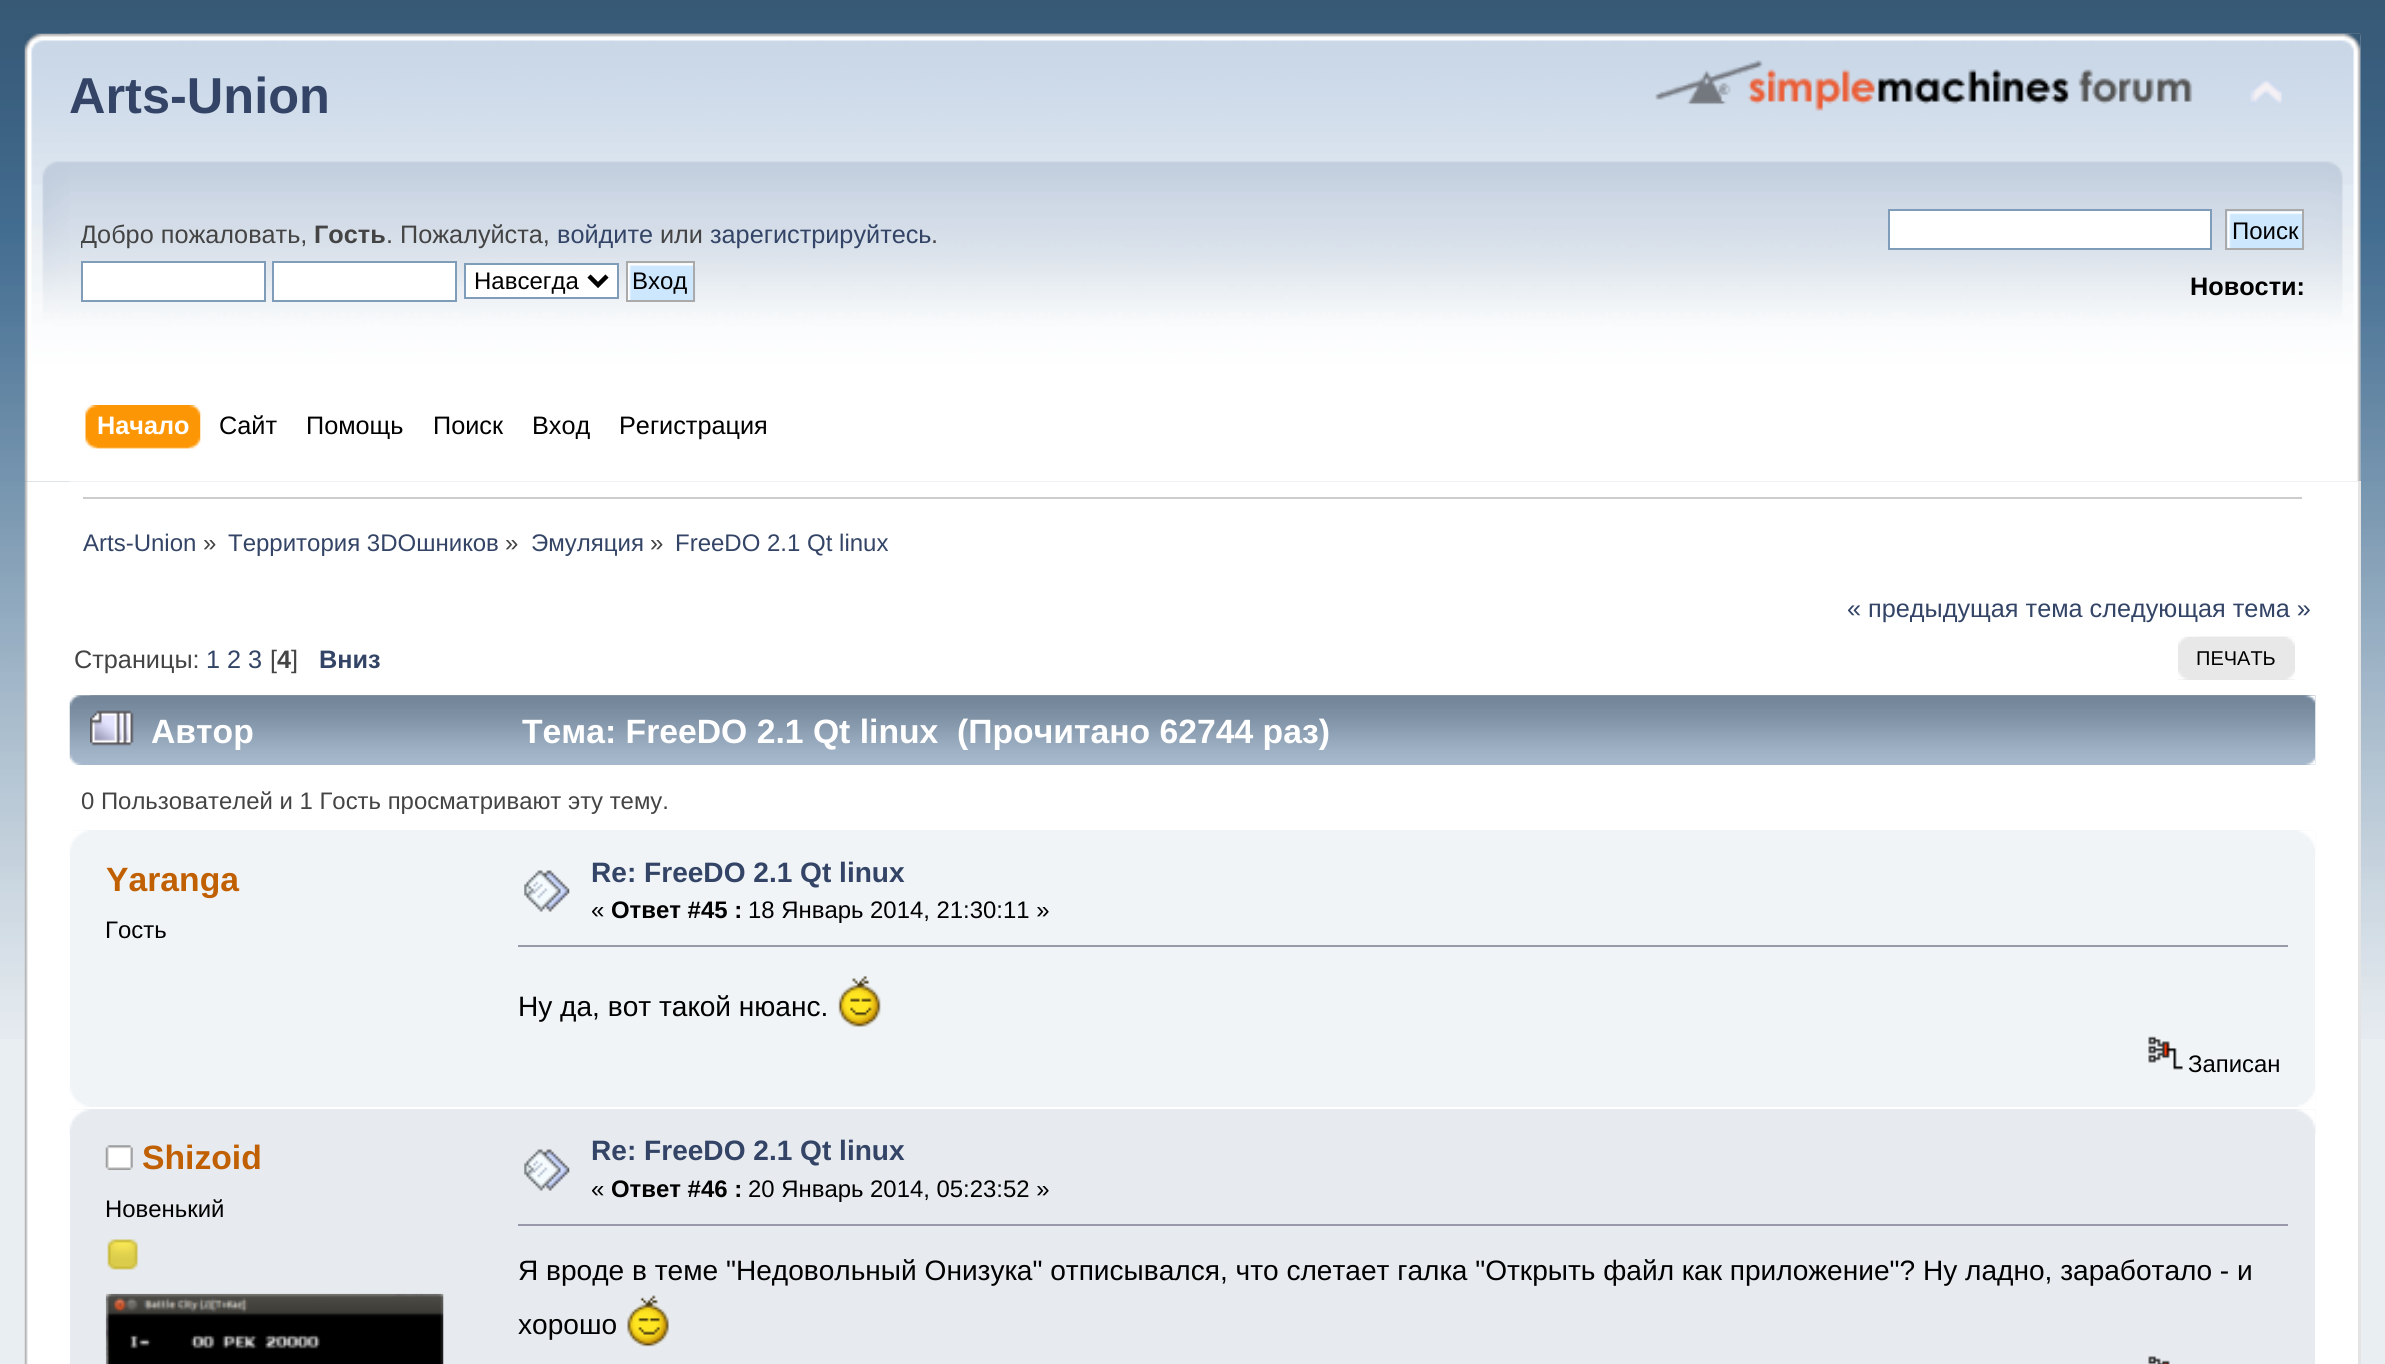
#include <cairo/cairo.h>
#include <math.h>
#include <stddef.h>

static cairo_t *cr;

static void use_color(int r, int g, int b) {
  cairo_set_source_rgb(cr, r / 255.0, g / 255.0, b / 255.0);
}

static void text(double x, double y, const char *s, const char *family, double size, int italic, int bold, int r, int g, int b) {
  cairo_select_font_face(cr, family, italic ? CAIRO_FONT_SLANT_ITALIC : CAIRO_FONT_SLANT_NORMAL,
    bold ? CAIRO_FONT_WEIGHT_BOLD : CAIRO_FONT_WEIGHT_NORMAL);
  cairo_set_font_size(cr, size);
  use_color(r, g, b);
  cairo_move_to(cr, x, y);
  cairo_show_text(cr, s);
}

static void box(double x, double y, double w, double h, int r, int g, int b) {
  use_color(r, g, b);
  cairo_rectangle(cr, x, y, w, h);
  cairo_fill(cr);
}

static void picture(const char *path, double x, double y, double w, double h) {
  cairo_surface_t *image = cairo_image_surface_create_from_png(path);
  cairo_save(cr);
  cairo_set_source_surface(cr, image, x, y);
  cairo_rectangle(cr, x, y, w, h);
  cairo_fill(cr);
  cairo_restore(cr);
  cairo_surface_destroy(image);
}

static void draw(void) {
  use_color(233, 238, 242);
  cairo_paint(cr);
  picture("img_01.png", 0, 0, 2385, 1039);
  picture("img_02.png", 24, 33, 2337, 449);
  picture("img_03.png", 69, 33, 2292, 449);
  picture("img_04.png", 1655, 60, 538, 51);
  picture("img_05.png", 2250, 80, 33, 25);
  use_color(255, 255, 255);
  cairo_rectangle(cr, 82, 262, 183, 39);
  cairo_fill_preserve(cr);
  use_color(127, 157, 185);
  cairo_stroke(cr);
  use_color(255, 255, 255);
  cairo_rectangle(cr, 273, 262, 183, 39);
  cairo_fill_preserve(cr);
  use_color(127, 157, 185);
  cairo_stroke(cr);
  use_color(255, 255, 255);
  cairo_rectangle(cr, 465, 264, 153, 34);
  cairo_fill_preserve(cr);
  use_color(127, 157, 185);
  cairo_stroke(cr);
  cairo_new_path(cr);
  cairo_move_to(cr, 589, 276);
  cairo_line_to(cr, 598, 285);
  cairo_line_to(cr, 607, 276);
  use_color(0, 0, 0);
  cairo_set_line_width(cr, 4.5);
  cairo_stroke(cr);
  picture("img_06.png", 628, 263, 68, 39);
  cairo_rectangle(cr, 627, 262, 67, 39);
  use_color(170, 170, 170);
  cairo_set_line_width(cr, 2);
  cairo_stroke(cr);
  use_color(255, 255, 255);
  cairo_rectangle(cr, 1889, 210, 322, 39);
  cairo_fill_preserve(cr);
  use_color(127, 157, 185);
  cairo_stroke(cr);
  box(2227, 211, 75, 37, 205, 231, 255);
  picture("img_07.png", 2227, 211, 75, 37);
  cairo_rectangle(cr, 2226, 210, 77, 39);
  use_color(170, 170, 170);
  cairo_stroke(cr);
  picture("img_08.png", 96, 405, 105, 44);
  picture("img_09.png", 85, 405, 104, 44);
  picture("img_10.png", 24, 481, 2334, 883);
  box(2358, 481, 3, 883, 228, 228, 228);
  box(83, 497, 2219, 2, 204, 204, 204);
  box(2178, 679, 117, 1, 232, 232, 232);
  picture("img_11.png", 2178, 636, 117, 44);
  picture("img_12.png", 2196, 636, 99, 44);
  picture("img_13.png", 69, 695, 2247, 70);
  picture("img_14.png", 90, 695, 2226, 70);
  picture("img_15.png", 90, 710, 44, 36);
  box(70, 830, 2245, 253, 240, 244, 247);
  picture("img_16.png", 69, 830, 2247, 25);
  picture("img_17.png", 2298, 830, 17, 18);
  picture("img_18.png", 524, 870, 46, 42);
  box(518, 945, 1770, 2, 153, 153, 170);
  picture("img_19.png", 838, 976, 43, 51);
  picture("img_20.png", 2148, 1036, 35, 34);
  picture("img_21.png", 69, 1083, 2247, 24);
  picture("img_22.png", 2298, 1089, 17, 18);
  box(70, 1109, 2245, 255, 231, 234, 239);
  picture("img_23.png", 69, 1109, 2247, 25);
  picture("img_24.png", 2296, 1109, 20, 25);
  picture("img_25.png", 105, 1145, 28, 25);
  picture("img_26.png", 107, 1239, 31, 31);
  picture("img_27.png", 105, 1293, 339, 71);
  picture("img_28.png", 524, 1149, 46, 42);
  box(518, 1224, 1770, 2, 153, 153, 170);
  picture("img_29.png", 627, 1295, 42, 52);
  picture("img_30.png", 2148, 1356, 22, 8);
  text(69, 113, "Arts-Union", "Liberation Sans", 50.5, 0, 1, 51, 68, 102);
  cairo_save(cr);
  cairo_rectangle(cr, 81, 209, 1112, 111);
  cairo_clip(cr);
  text(80, 243, "Добро пожаловать,", "Liberation Sans", 25.25, 0, 0, 68, 68, 68);
  cairo_restore(cr);
  text(314, 243, "Гость", "Liberation Sans", 25.25, 0, 1, 68, 68, 68);
  text(386, 243, ". Пожалуйста,", "Liberation Sans", 25.25, 0, 0, 68, 68, 68);
  text(557, 243, "войдите", "Liberation Sans", 25.25, 0, 0, 51, 68, 102);
  text(660, 243, "или", "Liberation Sans", 25.25, 0, 0, 68, 68, 68);
  text(710, 243, "зарегистрируйтесь", "Liberation Sans", 25.25, 0, 0, 51, 68, 102);
  text(931, 243, ".", "Liberation Sans", 25.25, 0, 0, 68, 68, 68);
  text(474, 289, "Навсегда", "Liberation Sans", 24, 0, 0, 0, 0, 0);
  text(632, 289, "Вход", "Liberation Sans", 24, 0, 0, 0, 0, 0);
  text(2232, 239, "Поиск", "Liberation Sans", 24, 0, 0, 0, 0, 0);
  text(2190, 295, "Новости:", "Liberation Sans", 25.25, 0, 1, 0, 0, 0);
  text(97, 434, "Начало", "Liberation Sans", 25.25, 0, 1, 255, 255, 255);
  text(219, 434, "Сайт", "Liberation Sans", 25.25, 0, 0, 0, 0, 0);
  text(306, 434, "Помощь", "Liberation Sans", 25.25, 0, 0, 0, 0, 0);
  text(433, 434, "Поиск", "Liberation Sans", 25.25, 0, 0, 0, 0, 0);
  text(532, 434, "Вход", "Liberation Sans", 25.25, 0, 0, 0, 0, 0);
  text(619, 434, "Регистрация", "Liberation Sans", 25.25, 0, 0, 0, 0, 0);
  text(83, 551, "Arts-Union", "Liberation Sans", 24, 0, 0, 51, 68, 102);
  text(203, 551, "»", "Liberation Sans", 24, 0, 0, 68, 68, 68);
  text(228, 551, "Территория 3DOшников", "Liberation Sans", 24, 0, 0, 51, 68, 102);
  text(505, 551, "»", "Liberation Sans", 24, 0, 0, 68, 68, 68);
  text(531, 551, "Эмуляция", "Liberation Sans", 24, 0, 0, 51, 68, 102);
  text(650, 551, "»", "Liberation Sans", 24, 0, 0, 68, 68, 68);
  text(675, 551, "FreeDO 2.1 Qt linux", "Liberation Sans", 24, 0, 0, 51, 68, 102);
  text(1847, 617, "« предыдущая тема следующая тема »", "Liberation Sans", 25.25, 0, 0, 51, 68, 102);
  text(74, 668, "Страницы:", "Liberation Sans", 25.25, 0, 0, 68, 68, 68);
  text(206, 668, "1 2 3", "Liberation Sans", 25.25, 0, 0, 51, 68, 102);
  text(270, 668, "[", "Liberation Sans", 25.25, 0, 0, 68, 68, 68);
  text(277, 668, "4", "Liberation Sans", 25.25, 0, 1, 68, 68, 68);
  text(291, 668, "]", "Liberation Sans", 25.25, 0, 0, 68, 68, 68);
  text(319, 668, "Вниз", "Liberation Sans", 25.25, 0, 1, 51, 68, 102);
  text(2196, 665, "ПЕЧАТЬ", "Liberation Sans", 20, 0, 0, 0, 0, 0);
  text(151, 743, "Автор", "Liberation Sans", 33.7, 0, 1, 255, 255, 255);
  text(522, 743, "Тема: FreeDO 2.1 Qt linux  (Прочитано 62744 раз)", "Liberation Sans", 33.7, 0, 1, 255, 255, 255);
  text(81, 809, "0 Пользователей и 1 Гость просматривают эту тему.", "Liberation Sans", 23.9, 0, 0, 68, 68, 68);
  text(106, 891, "Yaranga", "Liberation Sans", 33.7, 0, 1, 192, 96, 2);
  text(105, 938, "Гость", "Liberation Sans", 23.9, 0, 0, 0, 0, 0);
  text(591, 882, "Re: FreeDO 2.1 Qt linux", "Liberation Sans", 28.08, 0, 1, 51, 68, 102);
  text(591, 918, "«", "Liberation Sans", 23.9, 0, 0, 0, 0, 0);
  text(611, 918, "Ответ #45 :", "Liberation Sans", 23.9, 0, 1, 0, 0, 0);
  text(748, 918, "18 Январь 2014, 21:30:11 »", "Liberation Sans", 23.9, 0, 0, 0, 0, 0);
  text(518, 1016, "Ну да, вот такой нюанс.", "Liberation Sans", 28.08, 0, 0, 0, 0, 0);
  text(2188, 1072, "Записан", "Liberation Sans", 23.9, 0, 0, 0, 0, 0);
  text(142, 1169, "Shizoid", "Liberation Sans", 33.7, 0, 1, 192, 96, 2);
  text(105, 1217, "Новенький", "Liberation Sans", 23.9, 0, 0, 0, 0, 0);
  text(591, 1160, "Re: FreeDO 2.1 Qt linux", "Liberation Sans", 28.08, 0, 1, 51, 68, 102);
  text(591, 1197, "«", "Liberation Sans", 23.9, 0, 0, 0, 0, 0);
  text(611, 1197, "Ответ #46 :", "Liberation Sans", 23.9, 0, 1, 0, 0, 0);
  text(748, 1197, "20 Январь 2014, 05:23:52 »", "Liberation Sans", 23.9, 0, 0, 0, 0, 0);
  text(518, 1280, "Я вроде в теме \"Недовольный Онизука\" отписывался, что слетает галка \"Открыть файл как приложение\"? Ну ладно, заработало - и", "Liberation Sans", 28.08, 0, 0, 0, 0, 0);
  text(518, 1334, "хорошо", "Liberation Sans", 28.08, 0, 0, 0, 0, 0);
}

int main(void) {
  cairo_surface_t *surface = cairo_image_surface_create(CAIRO_FORMAT_RGB24, 2385, 1364);
  cr = cairo_create(surface);
  cairo_font_options_t *options = cairo_font_options_create();
  cairo_font_options_set_hint_metrics(options, CAIRO_HINT_METRICS_OFF);
  cairo_font_options_set_hint_style(options, CAIRO_HINT_STYLE_NONE);
  cairo_set_font_options(cr, options);
  cairo_set_miter_limit(cr, 4);
  draw();
  cairo_surface_write_to_png(surface, "out.png");
  cairo_font_options_destroy(options);
  cairo_destroy(cr);
  cairo_surface_destroy(surface);
  return 0;
}
